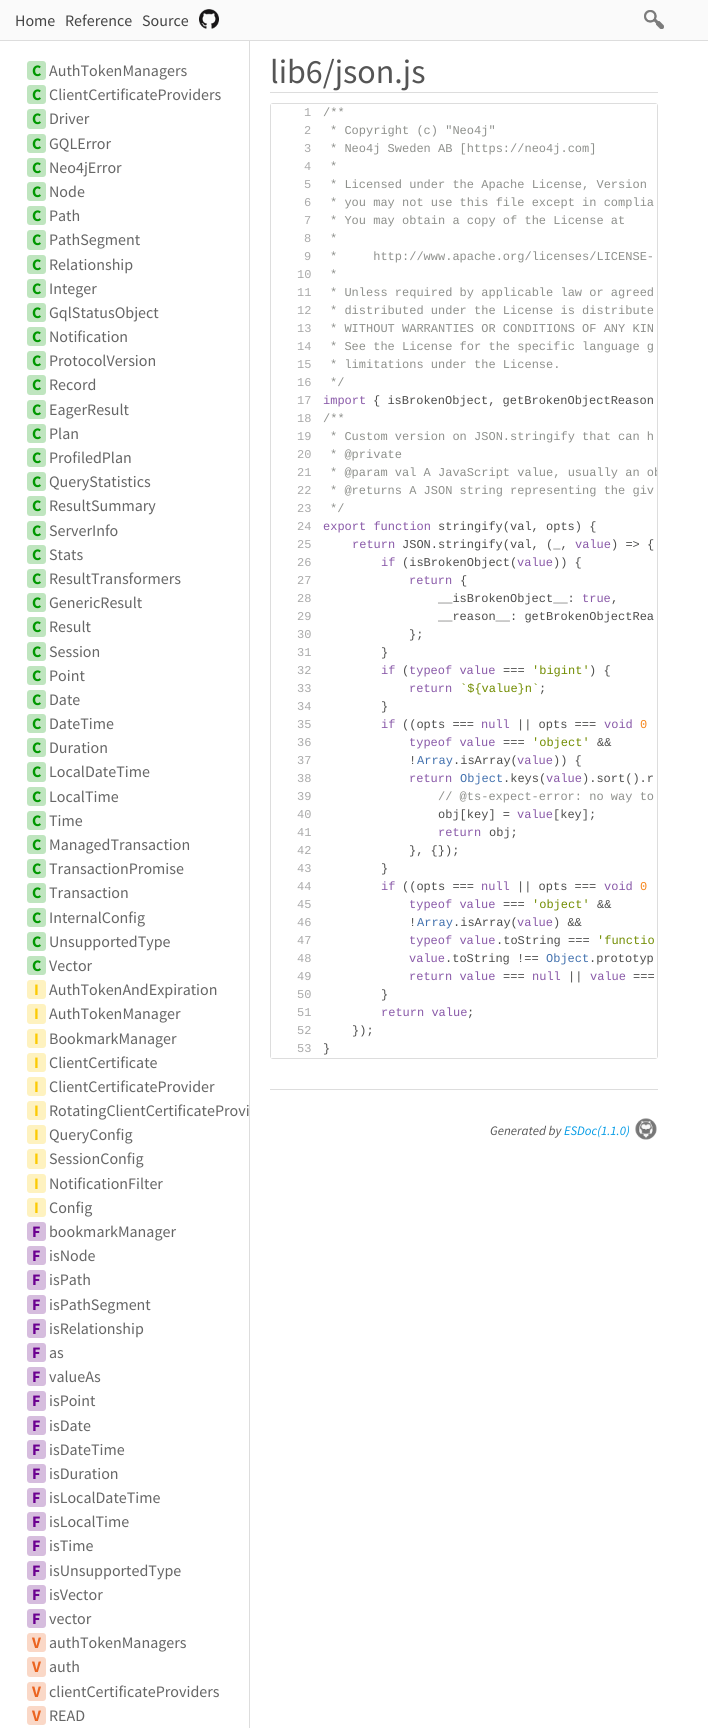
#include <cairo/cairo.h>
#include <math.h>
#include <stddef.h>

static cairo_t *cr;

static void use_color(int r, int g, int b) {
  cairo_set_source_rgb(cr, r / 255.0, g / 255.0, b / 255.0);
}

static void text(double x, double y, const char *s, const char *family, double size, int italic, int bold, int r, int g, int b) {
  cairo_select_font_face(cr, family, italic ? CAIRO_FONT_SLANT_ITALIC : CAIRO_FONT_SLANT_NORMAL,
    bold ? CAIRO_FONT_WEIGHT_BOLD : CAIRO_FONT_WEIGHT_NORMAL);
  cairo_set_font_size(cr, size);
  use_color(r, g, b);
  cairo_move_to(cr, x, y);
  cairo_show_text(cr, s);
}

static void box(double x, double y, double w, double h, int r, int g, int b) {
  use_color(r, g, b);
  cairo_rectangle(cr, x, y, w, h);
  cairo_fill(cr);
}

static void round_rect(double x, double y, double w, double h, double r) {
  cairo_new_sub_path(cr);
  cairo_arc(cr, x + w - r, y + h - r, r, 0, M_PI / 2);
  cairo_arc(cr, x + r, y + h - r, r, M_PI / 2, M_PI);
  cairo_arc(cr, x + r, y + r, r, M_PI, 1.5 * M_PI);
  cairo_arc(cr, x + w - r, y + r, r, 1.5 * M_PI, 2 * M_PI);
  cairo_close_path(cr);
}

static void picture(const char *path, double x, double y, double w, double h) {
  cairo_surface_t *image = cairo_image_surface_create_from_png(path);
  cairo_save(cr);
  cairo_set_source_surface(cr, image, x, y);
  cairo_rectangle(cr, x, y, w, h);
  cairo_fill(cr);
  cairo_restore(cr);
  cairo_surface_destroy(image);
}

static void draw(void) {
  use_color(255, 255, 255);
  cairo_paint(cr);
  box(0, 0, 708, 40, 250, 250, 250);
  box(0, 40, 708, 1, 221, 221, 221);
  picture("img_01.png", 199, 9, 20, 20);
  picture("img_02.png", 644, 10, 20, 19);
  box(249, 41, 1, 1687, 221, 221, 221);
  use_color(191, 229, 191);
  round_rect(27, 61, 19, 19, 3);
  cairo_fill(cr);
  round_rect(27, 85, 19, 19, 3);
  cairo_fill(cr);
  round_rect(27, 109, 19, 20, 3);
  cairo_fill(cr);
  round_rect(27, 134, 19, 19, 3);
  cairo_fill(cr);
  round_rect(27, 158, 19, 19, 3);
  cairo_fill(cr);
  round_rect(27, 182, 19, 19, 3);
  cairo_fill(cr);
  round_rect(27, 206, 19, 19, 3);
  cairo_fill(cr);
  round_rect(27, 230, 19, 20, 3);
  cairo_fill(cr);
  round_rect(27, 255, 19, 19, 3);
  cairo_fill(cr);
  round_rect(27, 279, 19, 19, 3);
  cairo_fill(cr);
  round_rect(27, 303, 19, 19, 3);
  cairo_fill(cr);
  round_rect(27, 327, 19, 19, 3);
  cairo_fill(cr);
  round_rect(27, 351, 19, 19, 3);
  cairo_fill(cr);
  round_rect(27, 375, 19, 20, 3);
  cairo_fill(cr);
  round_rect(27, 400, 19, 19, 3);
  cairo_fill(cr);
  round_rect(27, 424, 19, 19, 3);
  cairo_fill(cr);
  round_rect(27, 448, 19, 19, 3);
  cairo_fill(cr);
  round_rect(27, 472, 19, 19, 3);
  cairo_fill(cr);
  round_rect(27, 496, 19, 20, 3);
  cairo_fill(cr);
  round_rect(27, 521, 19, 19, 3);
  cairo_fill(cr);
  round_rect(27, 545, 19, 19, 3);
  cairo_fill(cr);
  round_rect(27, 569, 19, 19, 3);
  cairo_fill(cr);
  round_rect(27, 593, 19, 19, 3);
  cairo_fill(cr);
  round_rect(27, 617, 19, 20, 3);
  cairo_fill(cr);
  round_rect(27, 642, 19, 19, 3);
  cairo_fill(cr);
  round_rect(27, 666, 19, 19, 3);
  cairo_fill(cr);
  round_rect(27, 690, 19, 19, 3);
  cairo_fill(cr);
  round_rect(27, 714, 19, 19, 3);
  cairo_fill(cr);
  round_rect(27, 738, 19, 19, 3);
  cairo_fill(cr);
  round_rect(27, 762, 19, 20, 3);
  cairo_fill(cr);
  round_rect(27, 787, 19, 19, 3);
  cairo_fill(cr);
  round_rect(27, 811, 19, 19, 3);
  cairo_fill(cr);
  round_rect(27, 835, 19, 19, 3);
  cairo_fill(cr);
  round_rect(27, 859, 19, 19, 3);
  cairo_fill(cr);
  round_rect(27, 883, 19, 20, 3);
  cairo_fill(cr);
  round_rect(27, 908, 19, 19, 3);
  cairo_fill(cr);
  round_rect(27, 932, 19, 19, 3);
  cairo_fill(cr);
  round_rect(27, 956, 19, 19, 3);
  cairo_fill(cr);
  use_color(254, 242, 192);
  round_rect(27, 980, 19, 19, 3);
  cairo_fill(cr);
  round_rect(27, 1004, 19, 20, 3);
  cairo_fill(cr);
  round_rect(27, 1029, 19, 19, 3);
  cairo_fill(cr);
  round_rect(27, 1053, 19, 19, 3);
  cairo_fill(cr);
  round_rect(27, 1077, 19, 19, 3);
  cairo_fill(cr);
  round_rect(27, 1101, 19, 19, 3);
  cairo_fill(cr);
  round_rect(27, 1125, 19, 19, 3);
  cairo_fill(cr);
  round_rect(27, 1149, 19, 20, 3);
  cairo_fill(cr);
  round_rect(27, 1174, 19, 19, 3);
  cairo_fill(cr);
  round_rect(27, 1198, 19, 19, 3);
  cairo_fill(cr);
  use_color(214, 189, 222);
  round_rect(27, 1222, 19, 19, 3);
  cairo_fill(cr);
  round_rect(27, 1246, 19, 19, 3);
  cairo_fill(cr);
  round_rect(27, 1270, 19, 20, 3);
  cairo_fill(cr);
  round_rect(27, 1295, 19, 19, 3);
  cairo_fill(cr);
  round_rect(27, 1319, 19, 19, 3);
  cairo_fill(cr);
  round_rect(27, 1343, 19, 19, 3);
  cairo_fill(cr);
  round_rect(27, 1367, 19, 19, 3);
  cairo_fill(cr);
  round_rect(27, 1391, 19, 20, 3);
  cairo_fill(cr);
  round_rect(27, 1416, 19, 19, 3);
  cairo_fill(cr);
  round_rect(27, 1440, 19, 19, 3);
  cairo_fill(cr);
  round_rect(27, 1464, 19, 19, 3);
  cairo_fill(cr);
  round_rect(27, 1488, 19, 19, 3);
  cairo_fill(cr);
  round_rect(27, 1512, 19, 19, 3);
  cairo_fill(cr);
  round_rect(27, 1536, 19, 20, 3);
  cairo_fill(cr);
  round_rect(27, 1561, 19, 19, 3);
  cairo_fill(cr);
  round_rect(27, 1585, 19, 19, 3);
  cairo_fill(cr);
  round_rect(27, 1609, 19, 19, 3);
  cairo_fill(cr);
  use_color(250, 216, 199);
  round_rect(27, 1633, 19, 19, 3);
  cairo_fill(cr);
  round_rect(27, 1657, 19, 20, 3);
  cairo_fill(cr);
  round_rect(27, 1682, 19, 19, 3);
  cairo_fill(cr);
  round_rect(27, 1706, 19, 19, 3);
  cairo_fill(cr);
  box(270, 92, 388, 1, 221, 221, 221);
  round_rect(270.5, 103.5, 387, 955, 2.5);
  cairo_set_line_width(cr, 1);
  cairo_stroke(cr);
  box(271, 104, 386, 2, 255, 255, 255);
  box(271, 1056, 386, 2, 255, 255, 255);
  box(270, 1089, 388, 1, 221, 221, 221);
  picture("img_03.png", 635, 1118, 22, 22);
  text(15, 26, "Home", "Source Sans Pro", 16, 0, 0, 68, 68, 68);
  text(65, 26, "Reference", "Source Sans Pro", 16, 0, 0, 68, 68, 68);
  text(142, 26, "Source", "Source Sans Pro", 16, 0, 0, 68, 68, 68);
  text(32, 76, "C", "Source Sans Pro", 16, 0, 1, 0, 152, 0);
  text(49, 76, "AuthTokenManagers", "Source Sans Pro", 16, 0, 0, 102, 102, 102);
  text(32, 100, "C", "Source Sans Pro", 16, 0, 1, 0, 152, 0);
  text(49, 100, "ClientCertificateProviders", "Source Sans Pro", 16, 0, 0, 102, 102, 102);
  text(32, 124, "C", "Source Sans Pro", 16, 0, 1, 0, 152, 0);
  text(49, 124, "Driver", "Source Sans Pro", 16, 0, 0, 102, 102, 102);
  text(32, 149, "C", "Source Sans Pro", 16, 0, 1, 0, 152, 0);
  text(49, 149, "GQLError", "Source Sans Pro", 16, 0, 0, 102, 102, 102);
  text(32, 173, "C", "Source Sans Pro", 16, 0, 1, 0, 152, 0);
  text(49, 173, "Neo4jError", "Source Sans Pro", 16, 0, 0, 102, 102, 102);
  text(32, 197, "C", "Source Sans Pro", 16, 0, 1, 0, 152, 0);
  text(49, 197, "Node", "Source Sans Pro", 16, 0, 0, 102, 102, 102);
  text(32, 221, "C", "Source Sans Pro", 16, 0, 1, 0, 152, 0);
  text(49, 221, "Path", "Source Sans Pro", 16, 0, 0, 102, 102, 102);
  text(32, 245, "C", "Source Sans Pro", 16, 0, 1, 0, 152, 0);
  text(49, 245, "PathSegment", "Source Sans Pro", 16, 0, 0, 102, 102, 102);
  text(32, 270, "C", "Source Sans Pro", 16, 0, 1, 0, 152, 0);
  text(49, 270, "Relationship", "Source Sans Pro", 16, 0, 0, 102, 102, 102);
  text(32, 294, "C", "Source Sans Pro", 16, 0, 1, 0, 152, 0);
  text(49, 294, "Integer", "Source Sans Pro", 16, 0, 0, 102, 102, 102);
  text(32, 318, "C", "Source Sans Pro", 16, 0, 1, 0, 152, 0);
  text(49, 318, "GqlStatusObject", "Source Sans Pro", 16, 0, 0, 102, 102, 102);
  text(32, 342, "C", "Source Sans Pro", 16, 0, 1, 0, 152, 0);
  text(49, 342, "Notification", "Source Sans Pro", 16, 0, 0, 102, 102, 102);
  text(32, 366, "C", "Source Sans Pro", 16, 0, 1, 0, 152, 0);
  text(49, 366, "ProtocolVersion", "Source Sans Pro", 16, 0, 0, 102, 102, 102);
  text(32, 390, "C", "Source Sans Pro", 16, 0, 1, 0, 152, 0);
  text(49, 390, "Record", "Source Sans Pro", 16, 0, 0, 102, 102, 102);
  text(32, 415, "C", "Source Sans Pro", 16, 0, 1, 0, 152, 0);
  text(49, 415, "EagerResult", "Source Sans Pro", 16, 0, 0, 102, 102, 102);
  text(32, 439, "C", "Source Sans Pro", 16, 0, 1, 0, 152, 0);
  text(49, 439, "Plan", "Source Sans Pro", 16, 0, 0, 102, 102, 102);
  text(32, 463, "C", "Source Sans Pro", 16, 0, 1, 0, 152, 0);
  text(49, 463, "ProfiledPlan", "Source Sans Pro", 16, 0, 0, 102, 102, 102);
  text(32, 487, "C", "Source Sans Pro", 16, 0, 1, 0, 152, 0);
  text(49, 487, "QueryStatistics", "Source Sans Pro", 16, 0, 0, 102, 102, 102);
  text(32, 511, "C", "Source Sans Pro", 16, 0, 1, 0, 152, 0);
  text(49, 511, "ResultSummary", "Source Sans Pro", 16, 0, 0, 102, 102, 102);
  text(32, 536, "C", "Source Sans Pro", 16, 0, 1, 0, 152, 0);
  text(49, 536, "ServerInfo", "Source Sans Pro", 16, 0, 0, 102, 102, 102);
  text(32, 560, "C", "Source Sans Pro", 16, 0, 1, 0, 152, 0);
  text(49, 560, "Stats", "Source Sans Pro", 16, 0, 0, 102, 102, 102);
  text(32, 584, "C", "Source Sans Pro", 16, 0, 1, 0, 152, 0);
  text(49, 584, "ResultTransformers", "Source Sans Pro", 16, 0, 0, 102, 102, 102);
  text(32, 608, "C", "Source Sans Pro", 16, 0, 1, 0, 152, 0);
  text(49, 608, "GenericResult", "Source Sans Pro", 16, 0, 0, 102, 102, 102);
  text(32, 632, "C", "Source Sans Pro", 16, 0, 1, 0, 152, 0);
  text(49, 632, "Result", "Source Sans Pro", 16, 0, 0, 102, 102, 102);
  text(32, 657, "C", "Source Sans Pro", 16, 0, 1, 0, 152, 0);
  text(49, 657, "Session", "Source Sans Pro", 16, 0, 0, 102, 102, 102);
  text(32, 681, "C", "Source Sans Pro", 16, 0, 1, 0, 152, 0);
  text(49, 681, "Point", "Source Sans Pro", 16, 0, 0, 102, 102, 102);
  text(32, 705, "C", "Source Sans Pro", 16, 0, 1, 0, 152, 0);
  text(49, 705, "Date", "Source Sans Pro", 16, 0, 0, 102, 102, 102);
  text(32, 729, "C", "Source Sans Pro", 16, 0, 1, 0, 152, 0);
  text(49, 729, "DateTime", "Source Sans Pro", 16, 0, 0, 102, 102, 102);
  text(32, 753, "C", "Source Sans Pro", 16, 0, 1, 0, 152, 0);
  text(49, 753, "Duration", "Source Sans Pro", 16, 0, 0, 102, 102, 102);
  text(32, 777, "C", "Source Sans Pro", 16, 0, 1, 0, 152, 0);
  text(49, 777, "LocalDateTime", "Source Sans Pro", 16, 0, 0, 102, 102, 102);
  text(32, 802, "C", "Source Sans Pro", 16, 0, 1, 0, 152, 0);
  text(49, 802, "LocalTime", "Source Sans Pro", 16, 0, 0, 102, 102, 102);
  text(32, 826, "C", "Source Sans Pro", 16, 0, 1, 0, 152, 0);
  text(49, 826, "Time", "Source Sans Pro", 16, 0, 0, 102, 102, 102);
  text(32, 850, "C", "Source Sans Pro", 16, 0, 1, 0, 152, 0);
  text(49, 850, "ManagedTransaction", "Source Sans Pro", 16, 0, 0, 102, 102, 102);
  text(32, 874, "C", "Source Sans Pro", 16, 0, 1, 0, 152, 0);
  text(49, 874, "TransactionPromise", "Source Sans Pro", 16, 0, 0, 102, 102, 102);
  text(32, 898, "C", "Source Sans Pro", 16, 0, 1, 0, 152, 0);
  text(49, 898, "Transaction", "Source Sans Pro", 16, 0, 0, 102, 102, 102);
  text(32, 923, "C", "Source Sans Pro", 16, 0, 1, 0, 152, 0);
  text(49, 923, "InternalConfig", "Source Sans Pro", 16, 0, 0, 102, 102, 102);
  text(32, 947, "C", "Source Sans Pro", 16, 0, 1, 0, 152, 0);
  text(49, 947, "UnsupportedType", "Source Sans Pro", 16, 0, 0, 102, 102, 102);
  text(32, 971, "C", "Source Sans Pro", 16, 0, 1, 0, 152, 0);
  text(49, 971, "Vector", "Source Sans Pro", 16, 0, 0, 102, 102, 102);
  text(34, 995, "I", "Source Sans Pro", 16, 0, 1, 251, 202, 4);
  text(49, 995, "AuthTokenAndExpiration", "Source Sans Pro", 16, 0, 0, 102, 102, 102);
  text(34, 1019, "I", "Source Sans Pro", 16, 0, 1, 251, 202, 4);
  text(49, 1019, "AuthTokenManager", "Source Sans Pro", 16, 0, 0, 102, 102, 102);
  text(34, 1044, "I", "Source Sans Pro", 16, 0, 1, 251, 202, 4);
  text(49, 1044, "BookmarkManager", "Source Sans Pro", 16, 0, 0, 102, 102, 102);
  text(34, 1068, "I", "Source Sans Pro", 16, 0, 1, 251, 202, 4);
  text(49, 1068, "ClientCertificate", "Source Sans Pro", 16, 0, 0, 102, 102, 102);
  text(34, 1092, "I", "Source Sans Pro", 16, 0, 1, 251, 202, 4);
  text(49, 1092, "ClientCertificateProvider", "Source Sans Pro", 16, 0, 0, 102, 102, 102);
  text(34, 1116, "I", "Source Sans Pro", 16, 0, 1, 251, 202, 4);
  text(49, 1116, "RotatingClientCertificateProvi", "Source Sans Pro", 16, 0, 0, 102, 102, 102);
  text(34, 1140, "I", "Source Sans Pro", 16, 0, 1, 251, 202, 4);
  text(49, 1140, "QueryConfig", "Source Sans Pro", 16, 0, 0, 102, 102, 102);
  text(34, 1164, "I", "Source Sans Pro", 16, 0, 1, 251, 202, 4);
  text(49, 1164, "SessionConfig", "Source Sans Pro", 16, 0, 0, 102, 102, 102);
  text(34, 1189, "I", "Source Sans Pro", 16, 0, 1, 251, 202, 4);
  text(49, 1189, "NotificationFilter", "Source Sans Pro", 16, 0, 0, 102, 102, 102);
  text(34, 1213, "I", "Source Sans Pro", 16, 0, 1, 251, 202, 4);
  text(49, 1213, "Config", "Source Sans Pro", 16, 0, 0, 102, 102, 102);
  text(32, 1237, "F", "Source Sans Pro", 16, 0, 1, 107, 0, 144);
  text(49, 1237, "bookmarkManager", "Source Sans Pro", 16, 0, 0, 102, 102, 102);
  text(32, 1261, "F", "Source Sans Pro", 16, 0, 1, 107, 0, 144);
  text(49, 1261, "isNode", "Source Sans Pro", 16, 0, 0, 102, 102, 102);
  text(32, 1285, "F", "Source Sans Pro", 16, 0, 1, 107, 0, 144);
  text(49, 1285, "isPath", "Source Sans Pro", 16, 0, 0, 102, 102, 102);
  text(32, 1310, "F", "Source Sans Pro", 16, 0, 1, 107, 0, 144);
  text(49, 1310, "isPathSegment", "Source Sans Pro", 16, 0, 0, 102, 102, 102);
  text(32, 1334, "F", "Source Sans Pro", 16, 0, 1, 107, 0, 144);
  text(49, 1334, "isRelationship", "Source Sans Pro", 16, 0, 0, 102, 102, 102);
  text(32, 1358, "F", "Source Sans Pro", 16, 0, 1, 107, 0, 144);
  text(49, 1358, "as", "Source Sans Pro", 16, 0, 0, 102, 102, 102);
  text(32, 1382, "F", "Source Sans Pro", 16, 0, 1, 107, 0, 144);
  text(49, 1382, "valueAs", "Source Sans Pro", 16, 0, 0, 102, 102, 102);
  text(32, 1406, "F", "Source Sans Pro", 16, 0, 1, 107, 0, 144);
  text(49, 1406, "isPoint", "Source Sans Pro", 16, 0, 0, 102, 102, 102);
  text(32, 1431, "F", "Source Sans Pro", 16, 0, 1, 107, 0, 144);
  text(49, 1431, "isDate", "Source Sans Pro", 16, 0, 0, 102, 102, 102);
  text(32, 1455, "F", "Source Sans Pro", 16, 0, 1, 107, 0, 144);
  text(49, 1455, "isDateTime", "Source Sans Pro", 16, 0, 0, 102, 102, 102);
  text(32, 1479, "F", "Source Sans Pro", 16, 0, 1, 107, 0, 144);
  text(49, 1479, "isDuration", "Source Sans Pro", 16, 0, 0, 102, 102, 102);
  text(32, 1503, "F", "Source Sans Pro", 16, 0, 1, 107, 0, 144);
  text(49, 1503, "isLocalDateTime", "Source Sans Pro", 16, 0, 0, 102, 102, 102);
  text(32, 1527, "F", "Source Sans Pro", 16, 0, 1, 107, 0, 144);
  text(49, 1527, "isLocalTime", "Source Sans Pro", 16, 0, 0, 102, 102, 102);
  text(32, 1551, "F", "Source Sans Pro", 16, 0, 1, 107, 0, 144);
  text(49, 1551, "isTime", "Source Sans Pro", 16, 0, 0, 102, 102, 102);
  text(32, 1576, "F", "Source Sans Pro", 16, 0, 1, 107, 0, 144);
  text(49, 1576, "isUnsupportedType", "Source Sans Pro", 16, 0, 0, 102, 102, 102);
  text(32, 1600, "F", "Source Sans Pro", 16, 0, 1, 107, 0, 144);
  text(49, 1600, "isVector", "Source Sans Pro", 16, 0, 0, 102, 102, 102);
  text(32, 1624, "F", "Source Sans Pro", 16, 0, 1, 107, 0, 144);
  text(49, 1624, "vector", "Source Sans Pro", 16, 0, 0, 102, 102, 102);
  text(32, 1648, "V", "Source Sans Pro", 16, 0, 1, 235, 100, 32);
  text(49, 1648, "authTokenManagers", "Source Sans Pro", 16, 0, 0, 102, 102, 102);
  text(32, 1672, "V", "Source Sans Pro", 16, 0, 1, 235, 100, 32);
  text(49, 1672, "auth", "Source Sans Pro", 16, 0, 0, 102, 102, 102);
  text(32, 1697, "V", "Source Sans Pro", 16, 0, 1, 235, 100, 32);
  text(49, 1697, "clientCertificateProviders", "Source Sans Pro", 16, 0, 0, 102, 102, 102);
  text(32, 1721, "V", "Source Sans Pro", 16, 0, 1, 235, 100, 32);
  text(49, 1721, "READ", "Source Sans Pro", 16, 0, 0, 102, 102, 102);
  text(270, 83, "lib6/json.js", "Source Sans Pro", 34, 0, 0, 85, 85, 85);
  text(304, 116, "1", "Liberation Mono", 12, 0, 0, 170, 170, 170);
  text(323, 116, "/**", "Liberation Mono", 12, 0, 0, 142, 144, 140);
  text(304, 134, "2", "Liberation Mono", 12, 0, 0, 170, 170, 170);
  text(330, 134, "* Copyright (c) \"Neo4j\"", "Liberation Mono", 12, 0, 0, 142, 144, 140);
  text(304, 152, "3", "Liberation Mono", 12, 0, 0, 170, 170, 170);
  text(330, 152, "* Neo4j Sweden AB [https://neo4j.com]", "Liberation Mono", 12, 0, 0, 142, 144, 140);
  text(304, 170, "4", "Liberation Mono", 12, 0, 0, 170, 170, 170);
  text(330, 170, "*", "Liberation Mono", 12, 0, 0, 142, 144, 140);
  text(304, 188, "5", "Liberation Mono", 12, 0, 0, 170, 170, 170);
  text(330, 188, "* Licensed under the Apache License, Version", "Liberation Mono", 12, 0, 0, 142, 144, 140);
  text(304, 206, "6", "Liberation Mono", 12, 0, 0, 170, 170, 170);
  text(330, 206, "* you may not use this file except in complia", "Liberation Mono", 12, 0, 0, 142, 144, 140);
  text(304, 224, "7", "Liberation Mono", 12, 0, 0, 170, 170, 170);
  text(330, 224, "* You may obtain a copy of the License at", "Liberation Mono", 12, 0, 0, 142, 144, 140);
  text(304, 242, "8", "Liberation Mono", 12, 0, 0, 170, 170, 170);
  text(330, 242, "*", "Liberation Mono", 12, 0, 0, 142, 144, 140);
  text(304, 260, "9", "Liberation Mono", 12, 0, 0, 170, 170, 170);
  text(330, 260, "*     http://www.apache.org/licenses/LICENSE-", "Liberation Mono", 12, 0, 0, 142, 144, 140);
  text(297, 278, "10", "Liberation Mono", 12, 0, 0, 170, 170, 170);
  text(330, 278, "*", "Liberation Mono", 12, 0, 0, 142, 144, 140);
  text(297, 296, "11", "Liberation Mono", 12, 0, 0, 170, 170, 170);
  text(330, 296, "* Unless required by applicable law or agreed", "Liberation Mono", 12, 0, 0, 142, 144, 140);
  text(297, 314, "12", "Liberation Mono", 12, 0, 0, 170, 170, 170);
  text(330, 314, "* distributed under the License is distribute", "Liberation Mono", 12, 0, 0, 142, 144, 140);
  text(297, 332, "13", "Liberation Mono", 12, 0, 0, 170, 170, 170);
  text(330, 332, "* WITHOUT WARRANTIES OR CONDITIONS OF ANY KIN", "Liberation Mono", 12, 0, 0, 142, 144, 140);
  text(297, 350, "14", "Liberation Mono", 12, 0, 0, 170, 170, 170);
  text(330, 350, "* See the License for the specific language g", "Liberation Mono", 12, 0, 0, 142, 144, 140);
  text(297, 368, "15", "Liberation Mono", 12, 0, 0, 170, 170, 170);
  text(330, 368, "* limitations under the License.", "Liberation Mono", 12, 0, 0, 142, 144, 140);
  text(297, 386, "16", "Liberation Mono", 12, 0, 0, 170, 170, 170);
  text(330, 386, "*/", "Liberation Mono", 12, 0, 0, 142, 144, 140);
  text(297, 404, "17", "Liberation Mono", 12, 0, 0, 170, 170, 170);
  text(323, 404, "import", "Liberation Mono", 12, 0, 0, 137, 89, 168);
  text(373, 404, "{ isBrokenObject, getBrokenObjectReason", "Liberation Mono", 12, 0, 0, 77, 77, 76);
  text(297, 422, "18", "Liberation Mono", 12, 0, 0, 170, 170, 170);
  text(323, 422, "/**", "Liberation Mono", 12, 0, 0, 142, 144, 140);
  text(297, 440, "19", "Liberation Mono", 12, 0, 0, 170, 170, 170);
  text(330, 440, "* Custom version on JSON.stringify that can h", "Liberation Mono", 12, 0, 0, 142, 144, 140);
  text(297, 458, "20", "Liberation Mono", 12, 0, 0, 170, 170, 170);
  text(330, 458, "* @private", "Liberation Mono", 12, 0, 0, 142, 144, 140);
  text(297, 476, "21", "Liberation Mono", 12, 0, 0, 170, 170, 170);
  cairo_save(cr);
  cairo_rectangle(cr, 271, 104, 386, 954);
  cairo_clip(cr);
  text(330, 476, "* @param val A JavaScript value, usually an ob", "Liberation Mono", 12, 0, 0, 142, 144, 140);
  cairo_restore(cr);
  text(297, 494, "22", "Liberation Mono", 12, 0, 0, 170, 170, 170);
  text(330, 494, "* @returns A JSON string representing the giv", "Liberation Mono", 12, 0, 0, 142, 144, 140);
  text(297, 512, "23", "Liberation Mono", 12, 0, 0, 170, 170, 170);
  text(330, 512, "*/", "Liberation Mono", 12, 0, 0, 142, 144, 140);
  text(297, 530, "24", "Liberation Mono", 12, 0, 0, 170, 170, 170);
  text(323, 530, "export function", "Liberation Mono", 12, 0, 0, 137, 89, 168);
  text(438, 530, "stringify(val, opts) {", "Liberation Mono", 12, 0, 0, 77, 77, 76);
  text(297, 548, "25", "Liberation Mono", 12, 0, 0, 170, 170, 170);
  text(352, 548, "return", "Liberation Mono", 12, 0, 0, 137, 89, 168);
  text(402, 548, "JSON.stringify(val, (_,", "Liberation Mono", 12, 0, 0, 77, 77, 76);
  text(575, 548, "value", "Liberation Mono", 12, 0, 0, 137, 89, 168);
  text(611, 548, ") => {", "Liberation Mono", 12, 0, 0, 77, 77, 76);
  text(297, 566, "26", "Liberation Mono", 12, 0, 0, 170, 170, 170);
  text(381, 566, "if", "Liberation Mono", 12, 0, 0, 137, 89, 168);
  text(402, 566, "(isBrokenObject(", "Liberation Mono", 12, 0, 0, 77, 77, 76);
  text(517, 566, "value", "Liberation Mono", 12, 0, 0, 137, 89, 168);
  text(553, 566, ")) {", "Liberation Mono", 12, 0, 0, 77, 77, 76);
  text(297, 584, "27", "Liberation Mono", 12, 0, 0, 170, 170, 170);
  text(409, 584, "return", "Liberation Mono", 12, 0, 0, 137, 89, 168);
  text(460, 584, "{", "Liberation Mono", 12, 0, 0, 77, 77, 76);
  text(297, 602, "28", "Liberation Mono", 12, 0, 0, 170, 170, 170);
  text(438, 602, "__isBrokenObject__:", "Liberation Mono", 12, 0, 0, 77, 77, 76);
  text(582, 602, "true", "Liberation Mono", 12, 0, 0, 137, 89, 168);
  text(611, 602, ",", "Liberation Mono", 12, 0, 0, 77, 77, 76);
  text(297, 620, "29", "Liberation Mono", 12, 0, 0, 170, 170, 170);
  text(438, 620, "__reason__: getBrokenObjectRea", "Liberation Mono", 12, 0, 0, 77, 77, 76);
  text(297, 638, "30", "Liberation Mono", 12, 0, 0, 170, 170, 170);
  text(409, 638, "};", "Liberation Mono", 12, 0, 0, 77, 77, 76);
  text(297, 656, "31", "Liberation Mono", 12, 0, 0, 170, 170, 170);
  text(381, 656, "}", "Liberation Mono", 12, 0, 0, 77, 77, 76);
  text(297, 674, "32", "Liberation Mono", 12, 0, 0, 170, 170, 170);
  text(381, 674, "if", "Liberation Mono", 12, 0, 0, 137, 89, 168);
  text(402, 674, "(", "Liberation Mono", 12, 0, 0, 77, 77, 76);
  text(409, 674, "typeof value", "Liberation Mono", 12, 0, 0, 137, 89, 168);
  text(503, 674, "===", "Liberation Mono", 12, 0, 0, 77, 77, 76);
  text(532, 674, "'bigint'", "Liberation Mono", 12, 0, 0, 113, 140, 0);
  text(589, 674, ") {", "Liberation Mono", 12, 0, 0, 77, 77, 76);
  text(297, 692, "33", "Liberation Mono", 12, 0, 0, 170, 170, 170);
  text(409, 692, "return", "Liberation Mono", 12, 0, 0, 137, 89, 168);
  text(460, 692, "`${value}n`", "Liberation Mono", 12, 0, 0, 113, 140, 0);
  text(539, 692, ";", "Liberation Mono", 12, 0, 0, 77, 77, 76);
  text(297, 710, "34", "Liberation Mono", 12, 0, 0, 170, 170, 170);
  text(381, 710, "}", "Liberation Mono", 12, 0, 0, 77, 77, 76);
  text(297, 728, "35", "Liberation Mono", 12, 0, 0, 170, 170, 170);
  text(381, 728, "if", "Liberation Mono", 12, 0, 0, 137, 89, 168);
  text(402, 728, "((opts ===", "Liberation Mono", 12, 0, 0, 77, 77, 76);
  text(481, 728, "null", "Liberation Mono", 12, 0, 0, 137, 89, 168);
  text(517, 728, "|| opts ===", "Liberation Mono", 12, 0, 0, 77, 77, 76);
  text(604, 728, "void", "Liberation Mono", 12, 0, 0, 137, 89, 168);
  text(640, 728, "0", "Liberation Mono", 12, 0, 0, 245, 135, 31);
  text(297, 746, "36", "Liberation Mono", 12, 0, 0, 170, 170, 170);
  text(409, 746, "typeof value", "Liberation Mono", 12, 0, 0, 137, 89, 168);
  text(503, 746, "===", "Liberation Mono", 12, 0, 0, 77, 77, 76);
  text(532, 746, "'object'", "Liberation Mono", 12, 0, 0, 113, 140, 0);
  text(597, 746, "&&", "Liberation Mono", 12, 0, 0, 77, 77, 76);
  text(297, 764, "37", "Liberation Mono", 12, 0, 0, 170, 170, 170);
  text(409, 764, "!", "Liberation Mono", 12, 0, 0, 77, 77, 76);
  text(417, 764, "Array", "Liberation Mono", 12, 0, 0, 66, 113, 174);
  text(453, 764, ".isArray(", "Liberation Mono", 12, 0, 0, 77, 77, 76);
  text(517, 764, "value", "Liberation Mono", 12, 0, 0, 137, 89, 168);
  text(553, 764, ")) {", "Liberation Mono", 12, 0, 0, 77, 77, 76);
  text(297, 782, "38", "Liberation Mono", 12, 0, 0, 170, 170, 170);
  text(409, 782, "return", "Liberation Mono", 12, 0, 0, 137, 89, 168);
  text(460, 782, "Object", "Liberation Mono", 12, 0, 0, 66, 113, 174);
  text(503, 782, ".keys(", "Liberation Mono", 12, 0, 0, 77, 77, 76);
  text(546, 782, "value", "Liberation Mono", 12, 0, 0, 137, 89, 168);
  text(582, 782, ").sort().r", "Liberation Mono", 12, 0, 0, 77, 77, 76);
  text(297, 800, "39", "Liberation Mono", 12, 0, 0, 170, 170, 170);
  text(438, 800, "// @ts-expect-error: no way to", "Liberation Mono", 12, 0, 0, 142, 144, 140);
  text(297, 818, "40", "Liberation Mono", 12, 0, 0, 170, 170, 170);
  text(438, 818, "obj[key] =", "Liberation Mono", 12, 0, 0, 77, 77, 76);
  text(517, 818, "value", "Liberation Mono", 12, 0, 0, 137, 89, 168);
  text(553, 818, "[key];", "Liberation Mono", 12, 0, 0, 77, 77, 76);
  text(297, 836, "41", "Liberation Mono", 12, 0, 0, 170, 170, 170);
  text(438, 836, "return", "Liberation Mono", 12, 0, 0, 137, 89, 168);
  text(489, 836, "obj;", "Liberation Mono", 12, 0, 0, 77, 77, 76);
  text(297, 854, "42", "Liberation Mono", 12, 0, 0, 170, 170, 170);
  text(409, 854, "}, {});", "Liberation Mono", 12, 0, 0, 77, 77, 76);
  text(297, 872, "43", "Liberation Mono", 12, 0, 0, 170, 170, 170);
  text(381, 872, "}", "Liberation Mono", 12, 0, 0, 77, 77, 76);
  text(297, 890, "44", "Liberation Mono", 12, 0, 0, 170, 170, 170);
  text(381, 890, "if", "Liberation Mono", 12, 0, 0, 137, 89, 168);
  text(402, 890, "((opts ===", "Liberation Mono", 12, 0, 0, 77, 77, 76);
  text(481, 890, "null", "Liberation Mono", 12, 0, 0, 137, 89, 168);
  text(517, 890, "|| opts ===", "Liberation Mono", 12, 0, 0, 77, 77, 76);
  text(604, 890, "void", "Liberation Mono", 12, 0, 0, 137, 89, 168);
  text(640, 890, "0", "Liberation Mono", 12, 0, 0, 245, 135, 31);
  text(297, 908, "45", "Liberation Mono", 12, 0, 0, 170, 170, 170);
  text(409, 908, "typeof value", "Liberation Mono", 12, 0, 0, 137, 89, 168);
  text(503, 908, "===", "Liberation Mono", 12, 0, 0, 77, 77, 76);
  text(532, 908, "'object'", "Liberation Mono", 12, 0, 0, 113, 140, 0);
  text(597, 908, "&&", "Liberation Mono", 12, 0, 0, 77, 77, 76);
  text(297, 926, "46", "Liberation Mono", 12, 0, 0, 170, 170, 170);
  text(409, 926, "!", "Liberation Mono", 12, 0, 0, 77, 77, 76);
  text(417, 926, "Array", "Liberation Mono", 12, 0, 0, 66, 113, 174);
  text(453, 926, ".isArray(", "Liberation Mono", 12, 0, 0, 77, 77, 76);
  text(517, 926, "value", "Liberation Mono", 12, 0, 0, 137, 89, 168);
  text(553, 926, ") &&", "Liberation Mono", 12, 0, 0, 77, 77, 76);
  text(297, 944, "47", "Liberation Mono", 12, 0, 0, 170, 170, 170);
  text(409, 944, "typeof value", "Liberation Mono", 12, 0, 0, 137, 89, 168);
  text(496, 944, ".toString ===", "Liberation Mono", 12, 0, 0, 77, 77, 76);
  text(597, 944, "'functio", "Liberation Mono", 12, 0, 0, 113, 140, 0);
  text(297, 962, "48", "Liberation Mono", 12, 0, 0, 170, 170, 170);
  text(409, 962, "value", "Liberation Mono", 12, 0, 0, 137, 89, 168);
  text(445, 962, ".toString !==", "Liberation Mono", 12, 0, 0, 77, 77, 76);
  text(546, 962, "Object", "Liberation Mono", 12, 0, 0, 66, 113, 174);
  text(589, 962, ".prototyp", "Liberation Mono", 12, 0, 0, 77, 77, 76);
  text(297, 980, "49", "Liberation Mono", 12, 0, 0, 170, 170, 170);
  text(409, 980, "return value", "Liberation Mono", 12, 0, 0, 137, 89, 168);
  text(503, 980, "===", "Liberation Mono", 12, 0, 0, 77, 77, 76);
  text(532, 980, "null", "Liberation Mono", 12, 0, 0, 137, 89, 168);
  text(568, 980, "||", "Liberation Mono", 12, 0, 0, 77, 77, 76);
  text(590, 980, "value", "Liberation Mono", 12, 0, 0, 137, 89, 168);
  text(633, 980, "===", "Liberation Mono", 12, 0, 0, 77, 77, 76);
  text(297, 998, "50", "Liberation Mono", 12, 0, 0, 170, 170, 170);
  text(381, 998, "}", "Liberation Mono", 12, 0, 0, 77, 77, 76);
  text(297, 1016, "51", "Liberation Mono", 12, 0, 0, 170, 170, 170);
  text(381, 1016, "return value", "Liberation Mono", 12, 0, 0, 137, 89, 168);
  text(467, 1016, ";", "Liberation Mono", 12, 0, 0, 77, 77, 76);
  text(297, 1034, "52", "Liberation Mono", 12, 0, 0, 170, 170, 170);
  text(352, 1034, "});", "Liberation Mono", 12, 0, 0, 77, 77, 76);
  text(297, 1052, "53", "Liberation Mono", 12, 0, 0, 170, 170, 170);
  text(323, 1052, "}", "Liberation Mono", 12, 0, 0, 77, 77, 76);
  text(490, 1135, "Generated by", "Source Sans Pro", 13, 1, 0, 85, 85, 85);
  text(564, 1135, "ESDoc(1.1.0)", "Source Sans Pro", 13, 1, 0, 3, 155, 229);
}

int main(void) {
  cairo_surface_t *surface = cairo_image_surface_create(CAIRO_FORMAT_RGB24, 708, 1728);
  cr = cairo_create(surface);
  cairo_font_options_t *options = cairo_font_options_create();
  cairo_font_options_set_hint_metrics(options, CAIRO_HINT_METRICS_OFF);
  cairo_font_options_set_hint_style(options, CAIRO_HINT_STYLE_NONE);
  cairo_set_font_options(cr, options);
  cairo_set_miter_limit(cr, 4);
  draw();
  cairo_surface_write_to_png(surface, "out.png");
  cairo_font_options_destroy(options);
  cairo_destroy(cr);
  cairo_surface_destroy(surface);
  return 0;
}
